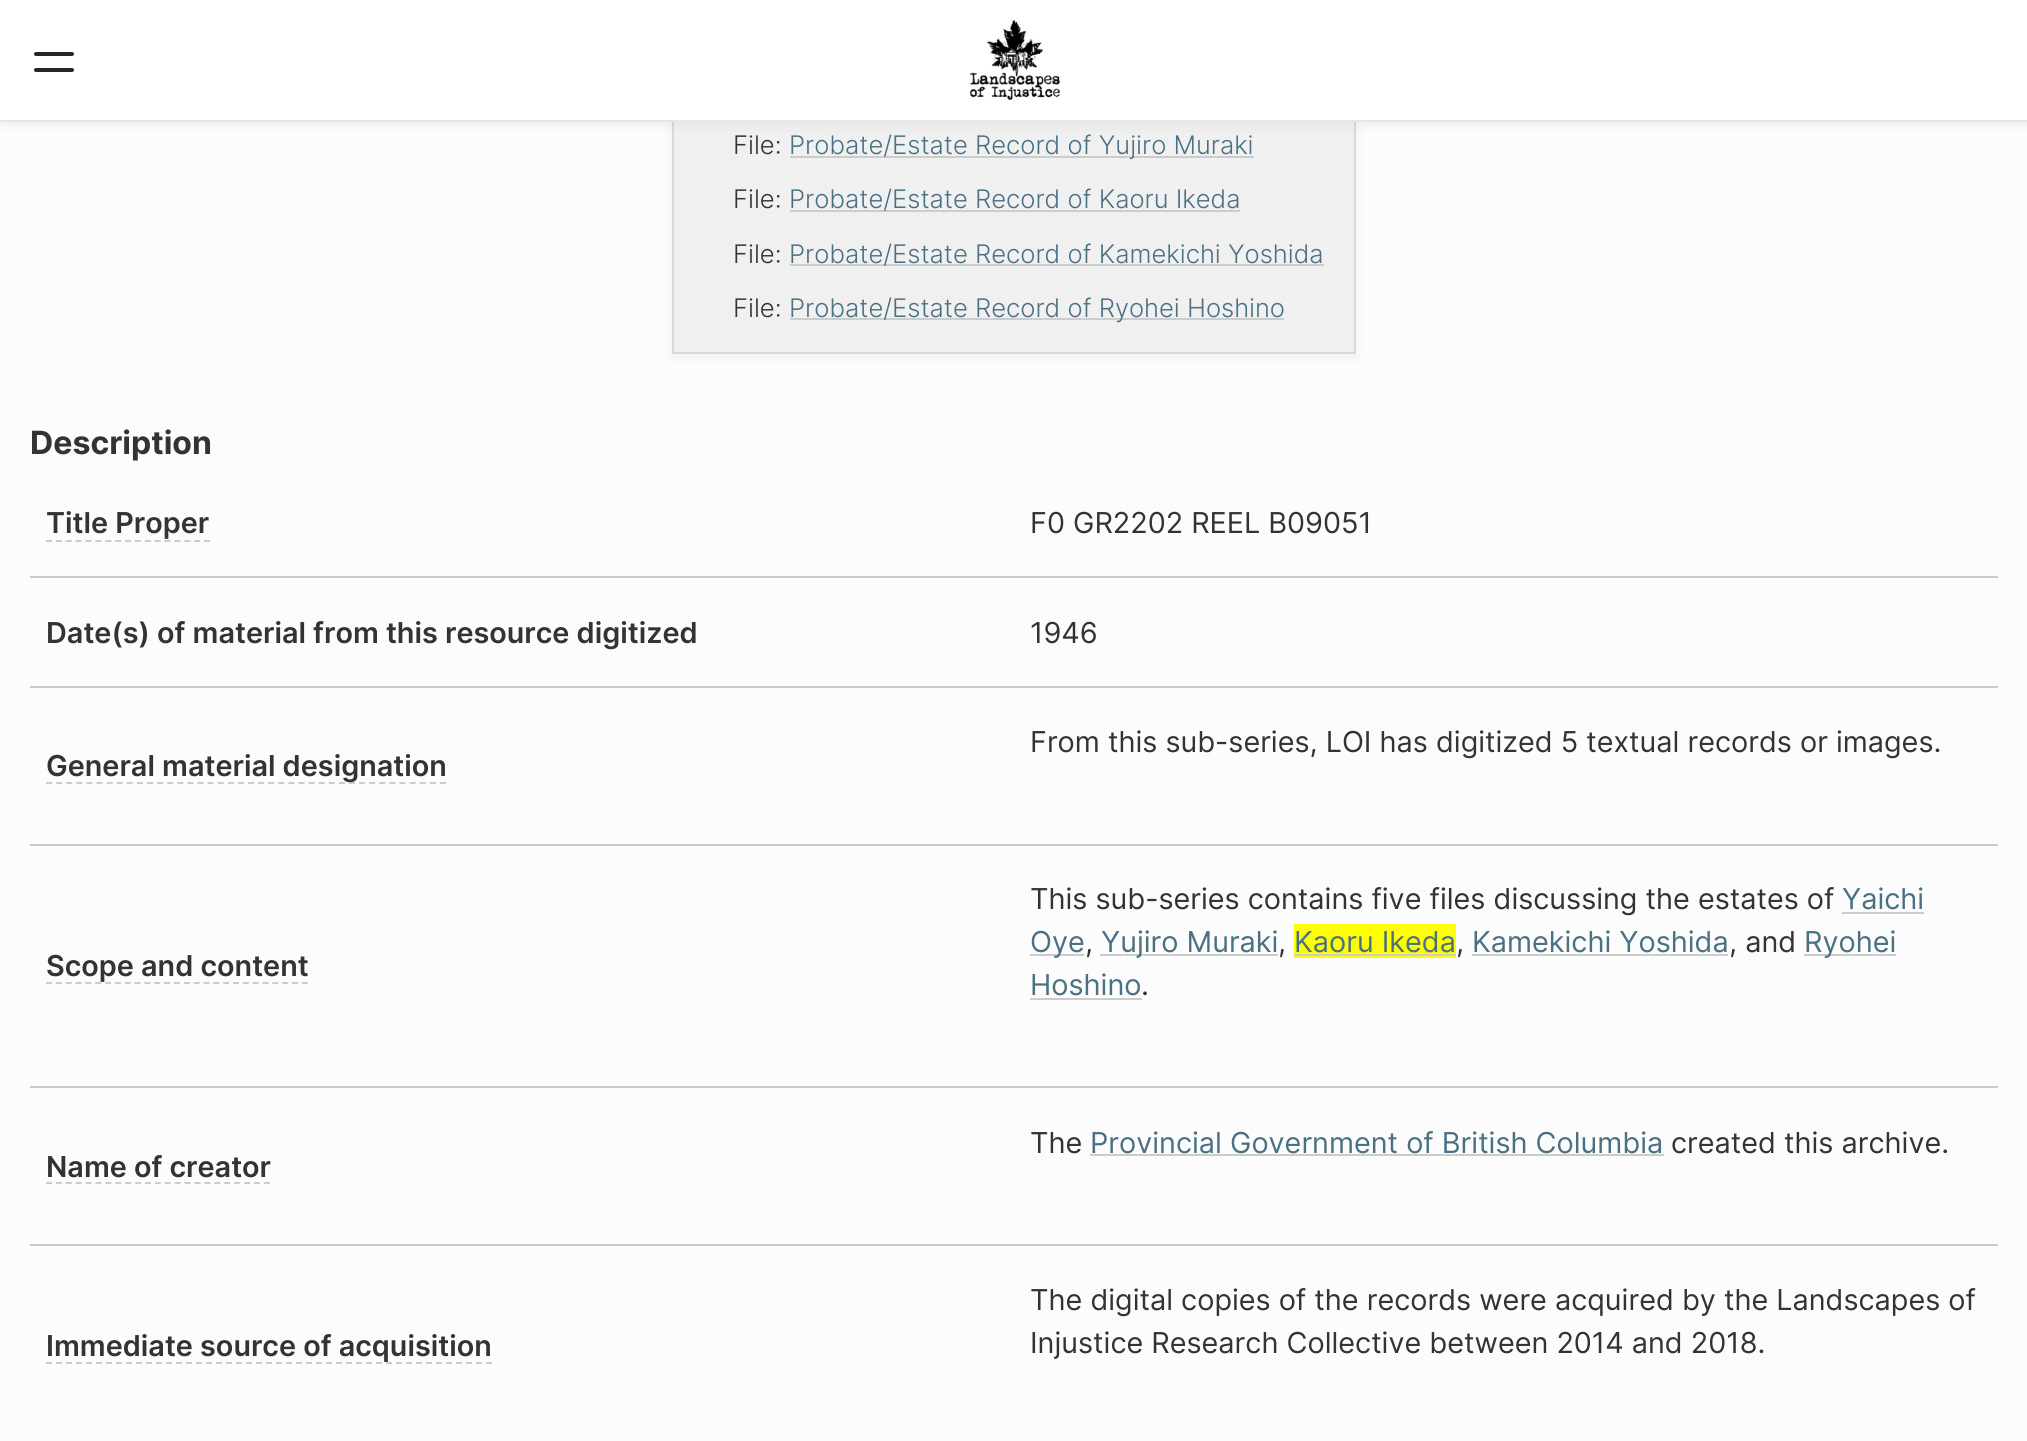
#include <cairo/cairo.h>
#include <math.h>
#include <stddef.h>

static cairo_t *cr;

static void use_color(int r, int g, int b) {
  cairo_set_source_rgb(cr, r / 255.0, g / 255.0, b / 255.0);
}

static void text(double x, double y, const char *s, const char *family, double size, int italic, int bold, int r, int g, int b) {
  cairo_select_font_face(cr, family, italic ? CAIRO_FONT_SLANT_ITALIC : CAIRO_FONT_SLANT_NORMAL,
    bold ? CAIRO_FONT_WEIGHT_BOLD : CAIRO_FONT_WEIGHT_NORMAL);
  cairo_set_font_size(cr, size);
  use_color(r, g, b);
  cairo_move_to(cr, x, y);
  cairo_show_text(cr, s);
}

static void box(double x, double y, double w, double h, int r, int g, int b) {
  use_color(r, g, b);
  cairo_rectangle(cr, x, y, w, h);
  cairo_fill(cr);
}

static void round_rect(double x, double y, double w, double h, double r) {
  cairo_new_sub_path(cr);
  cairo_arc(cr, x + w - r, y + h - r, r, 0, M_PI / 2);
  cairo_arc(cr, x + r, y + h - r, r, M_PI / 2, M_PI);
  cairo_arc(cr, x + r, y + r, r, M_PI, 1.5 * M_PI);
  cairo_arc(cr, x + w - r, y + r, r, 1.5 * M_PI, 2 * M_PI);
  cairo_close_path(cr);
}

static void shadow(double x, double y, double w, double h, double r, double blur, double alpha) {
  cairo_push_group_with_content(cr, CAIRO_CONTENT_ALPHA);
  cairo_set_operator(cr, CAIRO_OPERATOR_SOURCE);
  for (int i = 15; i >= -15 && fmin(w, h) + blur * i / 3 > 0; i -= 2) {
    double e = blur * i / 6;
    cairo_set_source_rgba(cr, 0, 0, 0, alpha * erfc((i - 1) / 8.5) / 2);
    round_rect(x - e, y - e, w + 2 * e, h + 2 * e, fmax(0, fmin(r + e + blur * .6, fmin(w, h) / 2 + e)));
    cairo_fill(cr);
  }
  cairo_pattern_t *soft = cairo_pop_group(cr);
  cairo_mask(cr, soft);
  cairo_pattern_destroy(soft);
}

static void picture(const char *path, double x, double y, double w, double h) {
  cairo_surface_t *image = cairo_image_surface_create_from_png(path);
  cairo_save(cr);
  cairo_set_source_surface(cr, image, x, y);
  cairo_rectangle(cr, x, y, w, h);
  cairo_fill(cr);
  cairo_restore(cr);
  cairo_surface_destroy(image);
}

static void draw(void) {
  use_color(252, 252, 252);
  cairo_paint(cr);
  use_color(0, 0, 0);
  shadow(672, -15, 684, 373, 0, 5, 0.05);
  box(674, 122, 680, 230, 240, 240, 240);
  cairo_rectangle(cr, 673, -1, 682, 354);
  use_color(216, 216, 216);
  cairo_stroke(cr);
  use_color(0, 0, 0);
  shadow(0, 4, 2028, 122, 0, 5, 0.05);
  box(0, 0, 2027, 120, 255, 255, 255);
  box(0, 120, 2027, 2, 230, 230, 230);
  use_color(38, 38, 38);
  round_rect(34, 52, 40, 4, 2);
  cairo_fill(cr);
  round_rect(34, 68, 40, 4, 2);
  cairo_fill(cr);
  picture("img_01.png", 970, 20, 90, 80);
  box(790, 156, 464, 2, 204, 204, 204);
  box(790, 210, 450, 2, 204, 204, 204);
  box(790, 264, 534, 2, 204, 204, 204);
  box(790, 318, 494, 2, 204, 204, 204);
  cairo_new_path(cr);
  cairo_move_to(cr, 46, 541);
  cairo_line_to(cr, 210, 541);
  cairo_set_dash(cr, (double[]){6, 3.88}, 2, 0);
  cairo_stroke(cr);
  box(30, 576, 1968, 2, 202, 202, 202);
  box(30, 686, 1968, 2, 202, 202, 202);
  box(30, 844, 1968, 2, 202, 202, 202);
  cairo_new_path(cr);
  cairo_move_to(cr, 46, 783);
  cairo_line_to(cr, 446, 783);
  use_color(204, 204, 204);
  cairo_set_dash(cr, (double[]){6, 4.1}, 2, 0);
  cairo_stroke(cr);
  cairo_new_path(cr);
  cairo_move_to(cr, 46, 983);
  cairo_line_to(cr, 308, 983);
  cairo_set_dash(cr, (double[]){6, 3.84}, 2, 0);
  cairo_stroke(cr);
  box(30, 1086, 1968, 2, 202, 202, 202);
  box(1842, 912, 82, 2, 204, 204, 204);
  box(1030, 954, 54, 2, 204, 204, 204);
  box(1100, 954, 178, 2, 204, 204, 204);
  box(1294, 924, 162, 34, 255, 255, 0);
  box(1294, 954, 162, 2, 204, 204, 204);
  box(1472, 954, 256, 2, 204, 204, 204);
  box(1804, 954, 92, 2, 204, 204, 204);
  box(1030, 998, 112, 2, 204, 204, 204);
  box(30, 1244, 1968, 2, 202, 202, 202);
  box(1090, 1154, 574, 2, 204, 204, 204);
  cairo_new_path(cr);
  cairo_move_to(cr, 46, 1183);
  cairo_line_to(cr, 270, 1183);
  cairo_set_dash(cr, (double[]){6, 3.9}, 2, 0);
  cairo_stroke(cr);
  cairo_new_path(cr);
  cairo_move_to(cr, 46, 1363);
  cairo_line_to(cr, 492, 1363);
  cairo_set_dash(cr, (double[]){6, 4}, 2, 0);
  cairo_stroke(cr);
  text(733, 154, "File:", "Inter Light", 25.6, 0, 0, 51, 51, 51);
  text(789, 154, "Probate/Estate Record of Yujiro Muraki", "Inter Light", 25.6, 0, 0, 74, 112, 132);
  text(733, 208, "File:", "Inter Light", 25.6, 0, 0, 51, 51, 51);
  text(789, 208, "Probate/Estate Record of Kaoru Ikeda", "Inter Light", 25.6, 0, 0, 74, 112, 132);
  text(733, 263, "File:", "Inter Light", 25.6, 0, 0, 51, 51, 51);
  text(789, 263, "Probate/Estate Record of Kamekichi Yoshida", "Inter Light", 25.6, 0, 0, 74, 112, 132);
  text(733, 317, "File:", "Inter Light", 25.6, 0, 0, 51, 51, 51);
  text(789, 317, "Probate/Estate Record of Ryohei Hoshino", "Inter Light", 25.6, 0, 0, 74, 112, 132);
  text(30, 454, "Description", "Inter", 32, 0, 1, 51, 51, 51);
  text(46, 533, "Title Proper", "Inter SemiBold", 28.8, 0, 0, 51, 51, 51);
  text(1030, 533, "F0 GR2202 REEL B09051", "Inter", 28.8, 0, 0, 51, 51, 51);
  text(46, 643, "Date(s) of material from this resource digitized", "Inter SemiBold", 28.8, 0, 0, 51, 51, 51);
  text(1030, 643, "1946", "Inter", 28.8, 0, 0, 51, 51, 51);
  text(1030, 752, "From this sub-series, LOI has digitized 5 textual records or images.", "Inter", 28.8, 0, 0, 51, 51, 51);
  text(46, 776, "General material designation", "Inter SemiBold", 28.8, 0, 0, 51, 51, 51);
  text(46, 976, "Scope and content", "Inter SemiBold", 28.8, 0, 0, 51, 51, 51);
  text(1030, 909, "This sub-series contains five files discussing the estates of", "Inter", 28.8, 0, 0, 51, 51, 51);
  text(1842, 909, "Yaichi", "Inter", 28.8, 0, 0, 74, 112, 132);
  text(1030, 952, "Oye", "Inter", 28.8, 0, 0, 74, 112, 132);
  text(1085, 952, ",", "Inter", 28.8, 0, 0, 51, 51, 51);
  text(1101, 952, "Yujiro Muraki", "Inter", 28.8, 0, 0, 74, 112, 132);
  text(1278, 952, ",", "Inter", 28.8, 0, 0, 51, 51, 51);
  text(1294, 952, "Kaoru Ikeda", "Inter", 28.8, 0, 0, 74, 112, 132);
  text(1456, 952, ",", "Inter", 28.8, 0, 0, 51, 51, 51);
  text(1472, 952, "Kamekichi Yoshida", "Inter", 28.8, 0, 0, 74, 112, 132);
  text(1729, 952, ", and", "Inter", 28.8, 0, 0, 51, 51, 51);
  text(1804, 952, "Ryohei", "Inter", 28.8, 0, 0, 74, 112, 132);
  text(1030, 995, "Hoshino", "Inter", 28.8, 0, 0, 74, 112, 132);
  text(1141, 995, ".", "Inter", 28.8, 0, 0, 51, 51, 51);
  text(1030, 1153, "The", "Inter", 28.8, 0, 0, 51, 51, 51);
  text(1090, 1153, "Provincial Government of British Columbia", "Inter", 28.8, 0, 0, 74, 112, 132);
  text(1671, 1153, "created this archive.", "Inter", 28.8, 0, 0, 51, 51, 51);
  text(46, 1177, "Name of creator", "Inter SemiBold", 28.8, 0, 0, 51, 51, 51);
  text(46, 1356, "Immediate source of acquisition", "Inter SemiBold", 28.8, 0, 0, 51, 51, 51);
  text(1030, 1310, "The digital copies of the records were acquired by the Landscapes of", "Inter", 28.8, 0, 0, 51, 51, 51);
  text(1030, 1353, "Injustice Research Collective between 2014 and 2018.", "Inter", 28.8, 0, 0, 51, 51, 51);
}

int main(void) {
  cairo_surface_t *surface = cairo_image_surface_create(CAIRO_FORMAT_RGB24, 2027, 1441);
  cr = cairo_create(surface);
  cairo_font_options_t *options = cairo_font_options_create();
  cairo_font_options_set_hint_metrics(options, CAIRO_HINT_METRICS_OFF);
  cairo_font_options_set_hint_style(options, CAIRO_HINT_STYLE_NONE);
  cairo_set_font_options(cr, options);
  cairo_set_miter_limit(cr, 4);
  draw();
  cairo_surface_write_to_png(surface, "out.png");
  cairo_font_options_destroy(options);
  cairo_destroy(cr);
  cairo_surface_destroy(surface);
  return 0;
}
